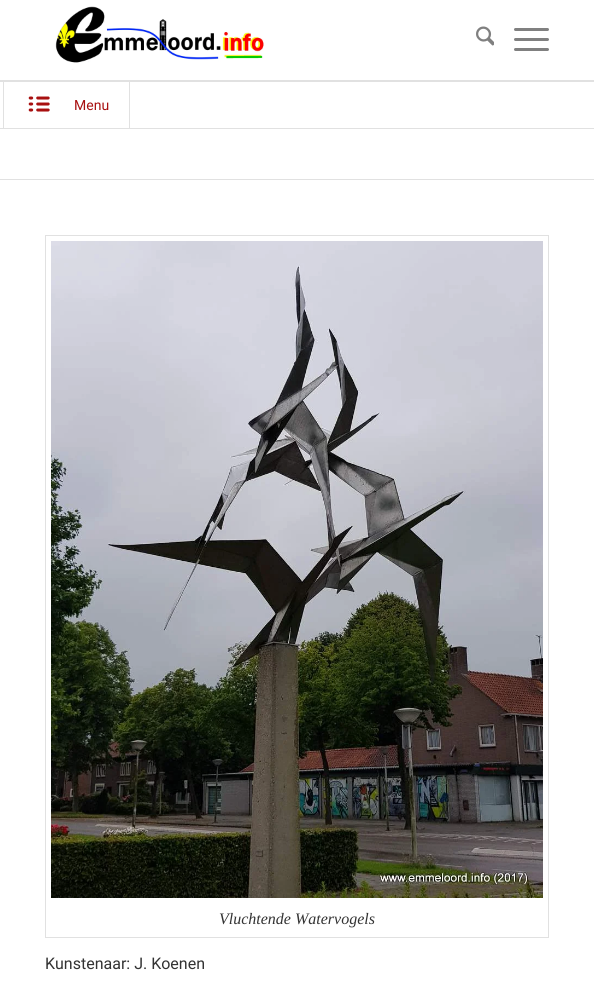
#include <cairo/cairo.h>
#include <math.h>
#include <stddef.h>

static cairo_t *cr;

static void use_color(int r, int g, int b) {
  cairo_set_source_rgb(cr, r / 255.0, g / 255.0, b / 255.0);
}

static void text(double x, double y, const char *s, const char *family, double size, int italic, int bold, int r, int g, int b) {
  cairo_select_font_face(cr, family, italic ? CAIRO_FONT_SLANT_ITALIC : CAIRO_FONT_SLANT_NORMAL,
    bold ? CAIRO_FONT_WEIGHT_BOLD : CAIRO_FONT_WEIGHT_NORMAL);
  cairo_set_font_size(cr, size);
  use_color(r, g, b);
  cairo_move_to(cr, x, y);
  cairo_show_text(cr, s);
}

static void box(double x, double y, double w, double h, int r, int g, int b) {
  use_color(r, g, b);
  cairo_rectangle(cr, x, y, w, h);
  cairo_fill(cr);
}

static void round_rect(double x, double y, double w, double h, double r) {
  cairo_new_sub_path(cr);
  cairo_arc(cr, x + w - r, y + h - r, r, 0, M_PI / 2);
  cairo_arc(cr, x + r, y + h - r, r, M_PI / 2, M_PI);
  cairo_arc(cr, x + r, y + r, r, M_PI, 1.5 * M_PI);
  cairo_arc(cr, x + w - r, y + r, r, 1.5 * M_PI, 2 * M_PI);
  cairo_close_path(cr);
}

static void picture(const char *path, double x, double y, double w, double h) {
  cairo_surface_t *image = cairo_image_surface_create_from_png(path);
  cairo_save(cr);
  cairo_set_source_surface(cr, image, x, y);
  cairo_rectangle(cr, x, y, w, h);
  cairo_fill(cr);
  cairo_restore(cr);
  cairo_surface_destroy(image);
}

static void draw(void) {
  use_color(255, 255, 255);
  cairo_paint(cr);
  picture("img_01.png", 55, 6, 209, 64);
  picture("img_02.png", 476, 26, 18, 20);
  use_color(128, 128, 128);
  round_rect(514, 38, 35, 3, 1.5);
  cairo_fill(cr);
  round_rect(514, 28, 35, 3, 1.5);
  cairo_fill(cr);
  round_rect(514, 48, 35, 3, 1.5);
  cairo_fill(cr);
  box(0, 80, 594, 2, 225, 225, 225);
  box(0, 128, 594, 1, 225, 225, 225);
  box(129, 82, 1, 46, 225, 225, 225);
  box(3, 82, 1, 46, 225, 225, 225);
  picture("img_03.png", 28, 96, 22, 16);
  box(0, 179, 594, 1, 225, 225, 225);
  cairo_rectangle(cr, 45.5, 235.5, 503, 702);
  cairo_set_line_width(cr, 1);
  cairo_stroke(cr);
  picture("img_04.png", 51, 241, 492, 657);
  text(74, 110, "Menu", "Roboto", 14, 0, 0, 168, 16, 16);
  text(219, 924, "Vluchtende Watervogels", "Liberation Serif", 16, 1, 0, 51, 51, 51);
  text(45, 969, "Kunstenaar: J. Koenen", "Roboto", 16, 0, 0, 51, 51, 51);
}

int main(void) {
  cairo_surface_t *surface = cairo_image_surface_create(CAIRO_FORMAT_RGB24, 594, 981);
  cr = cairo_create(surface);
  cairo_font_options_t *options = cairo_font_options_create();
  cairo_font_options_set_hint_metrics(options, CAIRO_HINT_METRICS_OFF);
  cairo_font_options_set_hint_style(options, CAIRO_HINT_STYLE_NONE);
  cairo_set_font_options(cr, options);
  cairo_set_miter_limit(cr, 4);
  draw();
  cairo_surface_write_to_png(surface, "out.png");
  cairo_font_options_destroy(options);
  cairo_destroy(cr);
  cairo_surface_destroy(surface);
  return 0;
}
